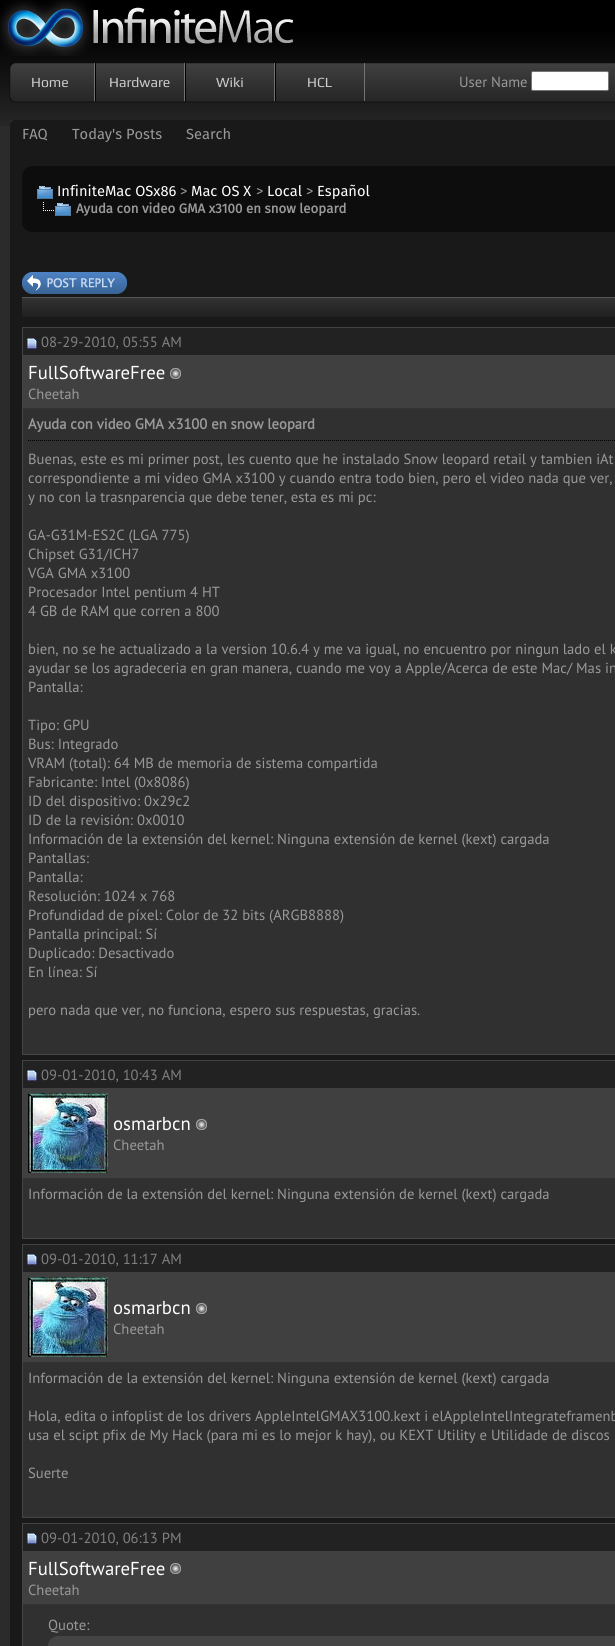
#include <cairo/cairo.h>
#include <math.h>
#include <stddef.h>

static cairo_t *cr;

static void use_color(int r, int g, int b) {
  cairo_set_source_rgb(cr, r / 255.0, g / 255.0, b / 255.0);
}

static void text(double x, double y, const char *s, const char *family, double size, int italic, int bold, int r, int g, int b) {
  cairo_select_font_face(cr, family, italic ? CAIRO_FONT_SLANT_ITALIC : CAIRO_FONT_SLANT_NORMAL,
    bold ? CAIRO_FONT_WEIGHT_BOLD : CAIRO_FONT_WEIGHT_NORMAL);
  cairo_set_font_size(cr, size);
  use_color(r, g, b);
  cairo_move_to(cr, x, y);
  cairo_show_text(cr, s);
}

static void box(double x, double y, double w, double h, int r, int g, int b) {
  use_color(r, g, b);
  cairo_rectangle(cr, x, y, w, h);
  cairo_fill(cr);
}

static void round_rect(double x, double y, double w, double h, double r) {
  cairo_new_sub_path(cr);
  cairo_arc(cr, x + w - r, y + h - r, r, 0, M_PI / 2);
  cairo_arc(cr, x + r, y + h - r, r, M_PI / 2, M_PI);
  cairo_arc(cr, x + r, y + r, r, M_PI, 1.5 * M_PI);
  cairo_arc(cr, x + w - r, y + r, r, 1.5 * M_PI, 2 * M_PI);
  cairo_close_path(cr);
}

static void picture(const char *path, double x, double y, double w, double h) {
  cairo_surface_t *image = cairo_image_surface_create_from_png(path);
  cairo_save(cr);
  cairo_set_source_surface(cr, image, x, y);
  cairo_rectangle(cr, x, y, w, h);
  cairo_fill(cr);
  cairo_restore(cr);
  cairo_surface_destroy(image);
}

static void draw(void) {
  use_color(43, 43, 43);
  cairo_paint(cr);
  picture("img_01.png", 0, 0, 615, 126);
  picture("img_02.png", 0, 0, 293, 56);
  picture("img_03.png", 9, 63, 606, 40);
  box(94, 63, 1, 38, 115, 115, 115);
  box(184, 63, 1, 38, 115, 115, 115);
  box(95, 63, 1, 38, 0, 0, 0);
  box(274, 63, 1, 38, 115, 115, 115);
  box(185, 63, 1, 38, 0, 0, 0);
  box(364, 63, 1, 38, 115, 115, 115);
  box(275, 63, 1, 38, 0, 0, 0);
  use_color(255, 255, 255);
  round_rect(531.5, 71.5, 77, 19, 1.5);
  cairo_fill_preserve(cr);
  use_color(118, 118, 118);
  cairo_set_line_width(cr, 1);
  cairo_stroke(cr);
  box(10, 120, 605, 1403, 25, 25, 25);
  picture("img_04.png", 10, 120, 4, 4);
  picture("img_05.png", 22, 166, 10, 10);
  use_color(13, 13, 13);
  round_rect(22, 166, 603, 66, 10);
  cairo_fill(cr);
  picture("img_06.png", 37, 186, 16, 13);
  picture("img_07.png", 43, 202, 28, 14);
  picture("img_08.png", 22, 272, 105, 22);
  picture("img_09.png", 22, 298, 593, 19);
  box(22, 297, 593, 1, 85, 85, 85);
  cairo_rectangle(cr, 22.5, 327.5, 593, 727);
  use_color(68, 68, 68);
  cairo_stroke(cr);
  box(23, 328, 592, 27, 34, 34, 34);
  picture("img_10.png", 27, 338, 10, 11);
  box(23, 355, 592, 53, 64, 64, 64);
  box(23, 408, 592, 1, 51, 51, 51);
  picture("img_11.png", 170, 368, 11, 11);
  box(23, 409, 592, 644, 48, 48, 48);
  box(23, 1053, 592, 1, 51, 51, 51);
  cairo_new_path(cr);
  cairo_move_to(cr, 28, 440.5);
  cairo_line_to(cr, 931, 440.5);
  use_color(0, 0, 0);
  cairo_set_dash(cr, (double[]){1, 1}, 2, 0);
  cairo_stroke(cr);
  cairo_rectangle(cr, 22.5, 1060.5, 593, 178);
  use_color(68, 68, 68);
  cairo_set_dash(cr, NULL, 0, 0);
  cairo_stroke(cr);
  box(23, 1061, 592, 27, 34, 34, 34);
  picture("img_10.png", 27, 1070, 10, 11);
  box(23, 1088, 592, 90, 64, 64, 64);
  box(23, 1178, 592, 1, 51, 51, 51);
  picture("img_12.png", 28, 1093, 80, 80);
  picture("img_11.png", 196, 1119, 11, 11);
  box(23, 1179, 592, 58, 48, 48, 48);
  box(23, 1237, 592, 1, 51, 51, 51);
  cairo_rectangle(cr, 22.5, 1244.5, 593, 273);
  use_color(68, 68, 68);
  cairo_stroke(cr);
  box(23, 1245, 592, 27, 34, 34, 34);
  picture("img_10.png", 27, 1254, 10, 11);
  box(23, 1272, 592, 90, 64, 64, 64);
  box(23, 1362, 592, 1, 51, 51, 51);
  picture("img_12.png", 28, 1277, 80, 80);
  picture("img_11.png", 196, 1303, 11, 11);
  box(23, 1363, 592, 153, 48, 48, 48);
  box(23, 1516, 592, 1, 51, 51, 51);
  box(10, 1523, 12, 123, 25, 25, 25);
  cairo_rectangle(cr, 22.5, 1523.5, 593, 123);
  use_color(68, 68, 68);
  cairo_stroke(cr);
  box(23, 1524, 592, 27, 34, 34, 34);
  picture("img_10.png", 27, 1533, 10, 11);
  box(23, 1551, 592, 53, 64, 64, 64);
  box(23, 1604, 592, 1, 51, 51, 51);
  picture("img_11.png", 170, 1563, 11, 11);
  box(23, 1605, 592, 41, 48, 48, 48);
  use_color(68, 68, 68);
  round_rect(48, 1636, 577, 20, 10);
  cairo_fill(cr);
  text(31, 87, "Home", "Play", 14, 0, 0, 204, 204, 204);
  text(109, 87, "Hardware", "Play", 14, 0, 0, 204, 204, 204);
  text(216, 87, "Wiki", "Play", 14, 0, 0, 204, 204, 204);
  text(307, 87, "HCL", "Play", 14, 0, 0, 204, 204, 204);
  text(459, 87, "User Name", "PT Sans", 14.65, 0, 0, 153, 153, 153);
  text(22, 139, "FAQ", "Fira Sans", 14.65, 0, 0, 153, 153, 153);
  text(72, 139, "Today's Posts", "Fira Sans", 14.65, 0, 0, 153, 153, 153);
  text(186, 139, "Search", "Fira Sans", 14.65, 0, 0, 153, 153, 153);
  text(57, 196, "InfiniteMac OSx86", "Fira Sans", 14.65, 0, 0, 255, 255, 255);
  text(180, 196, ">", "Fira Sans", 14.65, 0, 0, 153, 153, 153);
  text(191, 196, "Mac OS X", "Fira Sans", 14.65, 0, 0, 255, 255, 255);
  text(256, 196, ">", "Fira Sans", 14.65, 0, 0, 153, 153, 153);
  text(267, 196, "Local", "Fira Sans", 14.65, 0, 0, 255, 255, 255);
  text(306, 196, ">", "Fira Sans", 14.65, 0, 0, 153, 153, 153);
  text(317, 196, "Español", "Fira Sans", 14.65, 0, 0, 255, 255, 255);
  text(76, 213, "Ayuda con video GMA x3100 en snow leopard", "Fira Sans", 13.3, 0, 1, 153, 153, 153);
  text(41, 347, "08-29-2010, 05:55 AM", "PT Sans", 14.65, 0, 0, 128, 128, 128);
  text(28, 379, "FullSoftwareFree", "PT Sans", 18.75, 0, 0, 255, 255, 255);
  text(28, 399, "Cheetah", "PT Sans", 14.65, 0, 0, 153, 153, 153);
  text(28, 429, "Ayuda con video GMA x3100 en snow leopard", "PT Sans", 14.65, 0, 1, 153, 153, 153);
  text(28, 464, "Buenas, este es mi primer post, les cuento que he instalado Snow leopard retail y tambien iAt", "PT Sans", 14.65, 0, 0, 153, 153, 153);
  text(28, 483, "correspondiente a mi video GMA x3100 y cuando entra todo bien, pero el video nada que ver,", "PT Sans", 14.65, 0, 0, 153, 153, 153);
  text(28, 502, "y no con la trasnparencia que debe tener, esta es mi pc:", "PT Sans", 14.65, 0, 0, 153, 153, 153);
  text(28, 540, "GA-G31M-ES2C (LGA 775)", "PT Sans", 14.65, 0, 0, 153, 153, 153);
  text(28, 559, "Chipset G31/ICH7", "PT Sans", 14.65, 0, 0, 153, 153, 153);
  text(28, 578, "VGA GMA x3100", "PT Sans", 14.65, 0, 0, 153, 153, 153);
  text(28, 597, "Procesador Intel pentium 4 HT", "PT Sans", 14.65, 0, 0, 153, 153, 153);
  text(28, 616, "4 GB de RAM que corren a 800", "PT Sans", 14.65, 0, 0, 153, 153, 153);
  text(28, 654, "bien, no se he actualizado a la version 10.6.4 y me va igual, no encuentro por ningun lado el k", "PT Sans", 14.65, 0, 0, 153, 153, 153);
  text(28, 673, "ayudar se los agradeceria en gran manera, cuando me voy a Apple/Acerca de este Mac/ Mas in", "PT Sans", 14.65, 0, 0, 153, 153, 153);
  text(28, 692, "Pantalla:", "PT Sans", 14.65, 0, 0, 153, 153, 153);
  text(28, 730, "Tipo: GPU", "PT Sans", 14.65, 0, 0, 153, 153, 153);
  text(28, 749, "Bus: Integrado", "PT Sans", 14.65, 0, 0, 153, 153, 153);
  text(28, 768, "VRAM (total): 64 MB de memoria de sistema compartida", "PT Sans", 14.65, 0, 0, 153, 153, 153);
  text(28, 787, "Fabricante: Intel (0x8086)", "PT Sans", 14.65, 0, 0, 153, 153, 153);
  text(28, 806, "ID del dispositivo: 0x29c2", "PT Sans", 14.65, 0, 0, 153, 153, 153);
  text(28, 825, "ID de la revisión: 0x0010", "PT Sans", 14.65, 0, 0, 153, 153, 153);
  text(28, 844, "Información de la extensión del kernel: Ninguna extensión de kernel (kext) cargada", "PT Sans", 14.65, 0, 0, 153, 153, 153);
  text(28, 863, "Pantallas:", "PT Sans", 14.65, 0, 0, 153, 153, 153);
  text(28, 882, "Pantalla:", "PT Sans", 14.65, 0, 0, 153, 153, 153);
  text(28, 901, "Resolución: 1024 x 768", "PT Sans", 14.65, 0, 0, 153, 153, 153);
  text(28, 920, "Profundidad de píxel: Color de 32 bits (ARGB8888)", "PT Sans", 14.65, 0, 0, 153, 153, 153);
  text(28, 939, "Pantalla principal: Sí", "PT Sans", 14.65, 0, 0, 153, 153, 153);
  text(28, 958, "Duplicado: Desactivado", "PT Sans", 14.65, 0, 0, 153, 153, 153);
  text(28, 977, "En línea: Sí", "PT Sans", 14.65, 0, 0, 153, 153, 153);
  text(28, 1015, "pero nada que ver, no funciona, espero sus respuestas, gracias.", "PT Sans", 14.65, 0, 0, 153, 153, 153);
  text(41, 1080, "09-01-2010, 10:43 AM", "PT Sans", 14.65, 0, 0, 128, 128, 128);
  text(113, 1130, "osmarbcn", "PT Sans", 18.75, 0, 0, 255, 255, 255);
  text(113, 1150, "Cheetah", "PT Sans", 14.65, 0, 0, 153, 153, 153);
  text(28, 1199, "Información de la extensión del kernel: Ninguna extensión de kernel (kext) cargada", "PT Sans", 14.65, 0, 0, 153, 153, 153);
  text(41, 1264, "09-01-2010, 11:17 AM", "PT Sans", 14.65, 0, 0, 128, 128, 128);
  text(113, 1314, "osmarbcn", "PT Sans", 18.75, 0, 0, 255, 255, 255);
  text(113, 1334, "Cheetah", "PT Sans", 14.65, 0, 0, 153, 153, 153);
  text(28, 1383, "Información de la extensión del kernel: Ninguna extensión de kernel (kext) cargada", "PT Sans", 14.65, 0, 0, 153, 153, 153);
  text(28, 1421, "Hola, edita o infoplist de los drivers AppleIntelGMAX3100.kext i elAppleIntelIntegrateframenb", "PT Sans", 14.65, 0, 0, 153, 153, 153);
  text(28, 1440, "usa el scipt pfix de My Hack (para mi es lo mejor k hay), ou KEXT Utility e Utilidade de discos", "PT Sans", 14.65, 0, 0, 153, 153, 153);
  text(28, 1478, "Suerte", "PT Sans", 14.65, 0, 0, 153, 153, 153);
  text(41, 1543, "09-01-2010, 06:13 PM", "PT Sans", 14.65, 0, 0, 128, 128, 128);
  text(28, 1575, "FullSoftwareFree", "PT Sans", 18.75, 0, 0, 255, 255, 255);
  text(28, 1595, "Cheetah", "PT Sans", 14.65, 0, 0, 153, 153, 153);
  text(48, 1630, "Quote:", "PT Sans", 14.65, 0, 0, 153, 153, 153);
}

int main(void) {
  cairo_surface_t *surface = cairo_image_surface_create(CAIRO_FORMAT_RGB24, 615, 1646);
  cr = cairo_create(surface);
  cairo_font_options_t *options = cairo_font_options_create();
  cairo_font_options_set_hint_metrics(options, CAIRO_HINT_METRICS_OFF);
  cairo_font_options_set_hint_style(options, CAIRO_HINT_STYLE_NONE);
  cairo_set_font_options(cr, options);
  cairo_set_miter_limit(cr, 4);
  draw();
  cairo_surface_write_to_png(surface, "out.png");
  cairo_font_options_destroy(options);
  cairo_destroy(cr);
  cairo_surface_destroy(surface);
  return 0;
}
